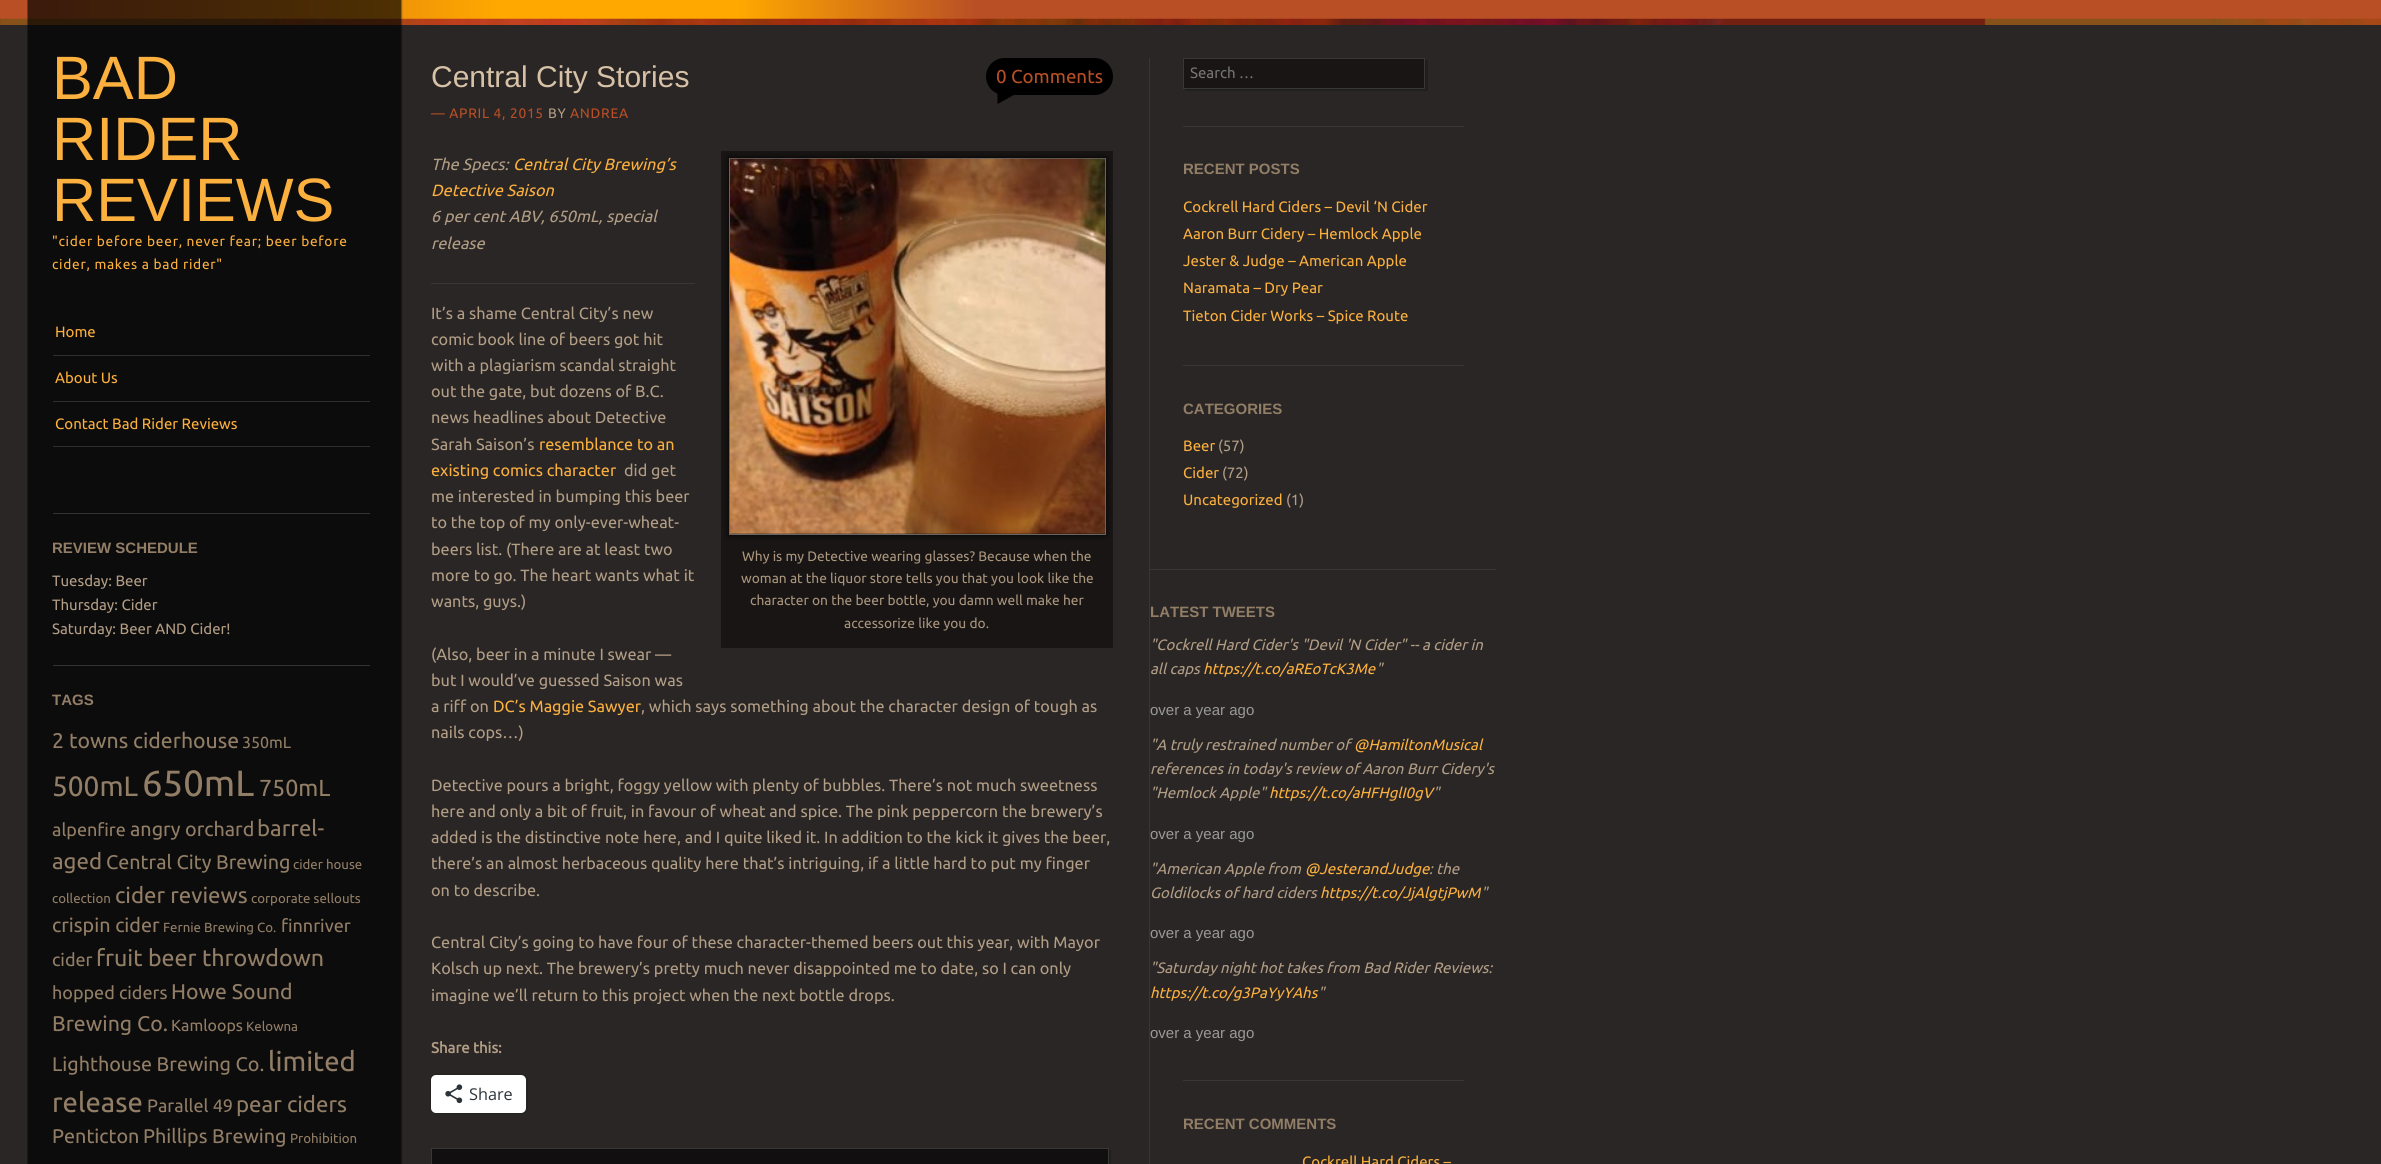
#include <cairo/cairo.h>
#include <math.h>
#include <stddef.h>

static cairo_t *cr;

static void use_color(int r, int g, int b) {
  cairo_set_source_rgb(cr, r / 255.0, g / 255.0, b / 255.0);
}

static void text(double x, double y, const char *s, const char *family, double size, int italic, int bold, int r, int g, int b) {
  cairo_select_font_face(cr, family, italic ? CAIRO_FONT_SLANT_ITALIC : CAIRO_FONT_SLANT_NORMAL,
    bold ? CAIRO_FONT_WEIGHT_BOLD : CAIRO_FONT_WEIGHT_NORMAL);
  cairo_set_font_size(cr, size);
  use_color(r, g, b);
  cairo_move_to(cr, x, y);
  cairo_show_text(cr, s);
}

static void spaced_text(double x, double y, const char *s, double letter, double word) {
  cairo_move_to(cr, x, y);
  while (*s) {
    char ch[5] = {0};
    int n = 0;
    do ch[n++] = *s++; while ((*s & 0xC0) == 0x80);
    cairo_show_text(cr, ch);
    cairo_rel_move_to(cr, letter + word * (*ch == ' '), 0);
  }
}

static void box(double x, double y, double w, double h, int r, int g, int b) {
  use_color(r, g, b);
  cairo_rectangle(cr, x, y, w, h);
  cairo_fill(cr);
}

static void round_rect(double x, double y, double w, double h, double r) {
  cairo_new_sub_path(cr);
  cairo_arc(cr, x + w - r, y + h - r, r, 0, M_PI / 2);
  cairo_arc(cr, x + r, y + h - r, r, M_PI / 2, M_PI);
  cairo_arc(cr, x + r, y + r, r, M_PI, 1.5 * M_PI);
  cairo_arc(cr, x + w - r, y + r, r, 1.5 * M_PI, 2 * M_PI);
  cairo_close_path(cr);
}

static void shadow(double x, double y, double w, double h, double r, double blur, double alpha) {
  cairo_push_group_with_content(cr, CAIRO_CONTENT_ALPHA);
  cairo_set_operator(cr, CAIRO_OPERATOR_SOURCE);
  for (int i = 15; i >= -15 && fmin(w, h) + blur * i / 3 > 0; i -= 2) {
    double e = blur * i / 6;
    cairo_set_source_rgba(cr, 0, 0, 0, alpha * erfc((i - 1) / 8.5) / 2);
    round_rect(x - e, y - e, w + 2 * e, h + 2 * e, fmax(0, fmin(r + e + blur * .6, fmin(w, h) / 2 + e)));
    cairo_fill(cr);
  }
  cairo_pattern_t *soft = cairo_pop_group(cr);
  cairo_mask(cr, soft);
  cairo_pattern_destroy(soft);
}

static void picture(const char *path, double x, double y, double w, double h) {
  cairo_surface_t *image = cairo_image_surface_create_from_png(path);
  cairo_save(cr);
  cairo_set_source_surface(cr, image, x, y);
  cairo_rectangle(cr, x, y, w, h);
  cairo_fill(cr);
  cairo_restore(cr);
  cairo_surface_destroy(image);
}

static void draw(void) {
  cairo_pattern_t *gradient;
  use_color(41, 38, 37);
  cairo_paint(cr);
  gradient = cairo_pattern_create_linear(0, 13, 2381, 12);
  cairo_pattern_add_color_stop_rgba(gradient, 0.01, 0.725, 0.31, 0.145, 1);
  cairo_pattern_add_color_stop_rgba(gradient, 0.21, 1, 0.659, 0, 1);
  cairo_pattern_add_color_stop_rgba(gradient, 0.31, 1, 0.659, 0, 1);
  cairo_pattern_add_color_stop_rgba(gradient, 0.41, 0.725, 0.31, 0.145, 1);
  cairo_set_source(cr, gradient);
  cairo_pattern_destroy(gradient);
  cairo_rectangle(cr, 0, 0, 2381, 19);
  cairo_fill(cr);
  picture("img_01.png", 0, 18, 2381, 7);
  picture("img_02.png", 27, 0, 376, 1164);
  box(53, 355, 317, 1, 48, 47, 45);
  box(53, 401, 317, 1, 48, 47, 45);
  box(53, 446, 317, 1, 48, 47, 45);
  box(53, 513, 317, 1, 51, 51, 51);
  box(53, 665, 317, 1, 51, 51, 51);
  use_color(0, 0, 0);
  round_rect(986, 58, 127, 37, 18.5);
  cairo_fill(cr);
  cairo_new_path(cr);
  cairo_move_to(cr, 997.5, 104);
  cairo_line_to(cr, 997.5, 91);
  cairo_line_to(cr, 1021, 91);
  cairo_close_path(cr);
  cairo_fill(cr);
  box(431, 283, 264, 1, 57, 54, 54);
  box(721, 151, 392, 497, 24, 21, 20);
  use_color(0, 0, 0);
  shadow(729, 158, 377, 377, 0, 3, 0.9);
  cairo_rectangle(cr, 729.5, 158.5, 376, 376);
  use_color(102, 102, 102);
  cairo_set_line_width(cr, 1);
  cairo_stroke(cr);
  picture("img_03.png", 730, 158, 375, 376);
  round_rect(430.5, 1074.5, 97, 39, 5.5);
  use_color(36, 33, 33);
  cairo_stroke(cr);
  use_color(255, 255, 255);
  round_rect(431, 1075, 95, 38, 5);
  cairo_fill(cr);
  picture("img_04.png", 445, 1084, 18, 20);
  use_color(33, 30, 30);
  cairo_new_path(cr);
  cairo_move_to(cr, 434, 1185);
  cairo_line_to(cr, 434, 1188);
  cairo_line_to(cr, 1111, 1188);
  cairo_line_to(cr, 1111, 1150);
  cairo_line_to(cr, 1109, 1150);
  cairo_line_to(cr, 1109, 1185);
  cairo_close_path(cr);
  cairo_fill(cr);
  use_color(18, 15, 16);
  cairo_rectangle(cr, 431.5, 1148.5, 677, 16);
  cairo_fill_preserve(cr);
  use_color(57, 54, 54);
  cairo_stroke(cr);
  box(1149, 58, 1, 1106, 57, 54, 54);
  use_color(33, 30, 30);
  cairo_new_path(cr);
  cairo_move_to(cr, 1185, 89);
  cairo_line_to(cr, 1185, 91);
  cairo_line_to(cr, 1428, 91);
  cairo_line_to(cr, 1428, 60);
  cairo_line_to(cr, 1425, 60);
  cairo_line_to(cr, 1425, 89);
  cairo_close_path(cr);
  cairo_fill(cr);
  use_color(24, 21, 20);
  cairo_rectangle(cr, 1183.5, 58.5, 241, 30);
  cairo_fill_preserve(cr);
  use_color(57, 55, 54);
  cairo_stroke(cr);
  box(1183, 126, 281, 1, 57, 54, 54);
  box(1183, 365, 281, 1, 57, 54, 54);
  box(1150, 569, 346, 1, 57, 54, 54);
  box(1183, 1080, 281, 1, 57, 54, 54);
  text(52, 99, "BAD", "Liberation Sans", 61.25, 0, 0, 252, 176, 62);
  text(52, 160, "RIDER", "Liberation Sans", 61.25, 0, 0, 252, 176, 62);
  text(52, 221, "REVIEWS", "Liberation Sans", 61.25, 0, 0, 252, 176, 62);
  cairo_select_font_face(cr, "Ubuntu", CAIRO_FONT_SLANT_NORMAL, CAIRO_FONT_WEIGHT_NORMAL);
  cairo_set_font_size(cr, 13.75);
  spaced_text(52, 246, "\"cider before beer, never fear; beer before", 0.7, 0);
  spaced_text(52, 269, "cider, makes a bad rider\"", 0.7, 0);
  text(55, 337, "Home", "Ubuntu", 15, 0, 0, 252, 176, 62);
  text(55, 383, "About Us", "Ubuntu", 15, 0, 0, 252, 176, 62);
  text(55, 429, "Contact Bad Rider Reviews", "Ubuntu", 15, 0, 0, 252, 176, 62);
  text(52, 553, "REVIEW SCHEDULE", "Liberation Sans", 15, 0, 1, 146, 126, 102);
  text(52, 586, "Tuesday: Beer", "Ubuntu", 15, 0, 0, 178, 157, 133);
  text(52, 610, "Thursday: Cider", "Ubuntu", 15, 0, 0, 178, 157, 133);
  text(52, 634, "Saturday: Beer AND Cider!", "Ubuntu", 15, 0, 0, 178, 157, 133);
  text(52, 705, "TAGS", "Liberation Sans", 15, 0, 1, 146, 126, 102);
  text(52, 748, "2 towns ciderhouse", "Ubuntu", 21.25, 0, 0, 146, 126, 102);
  text(242, 748, "350mL", "Ubuntu", 16, 0, 0, 146, 126, 102);
  text(52, 796, "500mL", "Ubuntu", 28, 0, 0, 146, 126, 102);
  text(142, 796, "650mL", "Ubuntu", 36.5, 0, 0, 146, 126, 102);
  text(259, 796, "750mL", "Ubuntu", 23.25, 0, 0, 146, 126, 102);
  text(52, 836, "alpenfire", "Ubuntu", 18, 0, 0, 146, 126, 102);
  text(130, 836, "angry orchard", "Ubuntu", 19.75, 0, 0, 146, 126, 102);
  text(257, 836, "barrel-", "Ubuntu", 22.25, 0, 0, 146, 126, 102);
  text(52, 869, "aged", "Ubuntu", 22.25, 0, 0, 146, 126, 102);
  text(106, 869, "Central City Brewing", "Ubuntu", 19.75, 0, 0, 146, 126, 102);
  text(293, 869, "cider house", "Ubuntu", 13.25, 0, 0, 146, 126, 102);
  text(52, 903, "collection", "Ubuntu", 13.25, 0, 0, 146, 126, 102);
  text(115, 903, "cider reviews", "Ubuntu", 22.25, 0, 0, 146, 126, 102);
  text(251, 903, "corporate sellouts", "Ubuntu", 13.25, 0, 0, 146, 126, 102);
  text(52, 932, "crispin cider", "Ubuntu", 19.75, 0, 0, 146, 126, 102);
  text(163, 932, "Fernie Brewing Co.", "Ubuntu", 13.25, 0, 0, 146, 126, 102);
  text(281, 932, "finnriver", "Ubuntu", 18, 0, 0, 146, 126, 102);
  text(52, 966, "cider", "Ubuntu", 18, 0, 0, 146, 126, 102);
  text(96, 966, "fruit beer throwdown", "Ubuntu", 23.25, 0, 0, 146, 126, 102);
  text(52, 999, "hopped ciders", "Ubuntu", 18, 0, 0, 146, 126, 102);
  text(171, 999, "Howe Sound", "Ubuntu", 21.25, 0, 0, 146, 126, 102);
  text(52, 1031, "Brewing Co.", "Ubuntu", 21.25, 0, 0, 146, 126, 102);
  text(171, 1031, "Kamloops", "Ubuntu", 16, 0, 0, 146, 126, 102);
  text(246, 1031, "Kelowna", "Ubuntu", 13.25, 0, 0, 146, 126, 102);
  text(52, 1071, "Lighthouse Brewing Co.", "Ubuntu", 19.75, 0, 0, 146, 126, 102);
  text(268, 1071, "limited", "Ubuntu", 27.5, 0, 0, 146, 126, 102);
  text(52, 1112, "release", "Ubuntu", 27.5, 0, 0, 146, 126, 102);
  text(147, 1112, "Parallel 49", "Ubuntu", 18, 0, 0, 146, 126, 102);
  text(236, 1112, "pear ciders", "Ubuntu", 22.25, 0, 0, 146, 126, 102);
  text(52, 1143, "Penticton", "Ubuntu", 19.75, 0, 0, 146, 126, 102);
  text(143, 1143, "Phillips Brewing", "Ubuntu", 19.75, 0, 0, 146, 126, 102);
  text(290, 1143, "Prohibition", "Ubuntu", 13.25, 0, 0, 146, 126, 102);
  text(431, 87, "Central City Stories", "Liberation Sans", 30, 0, 0, 215, 194, 168);
  text(996, 83, "0 Comments", "Ubuntu", 18.75, 0, 0, 185, 79, 37);
  cairo_set_font_size(cr, 13.75);
  spaced_text(431, 118, "— APRIL 4, 2015", 0.7, 0);
  use_color(178, 157, 133);
  spaced_text(548, 118, "BY", 0.7, 0);
  use_color(185, 79, 37);
  spaced_text(570, 118, "ANDREA", 0.7, 0);
  text(431, 170, "The Specs:", "Ubuntu", 16.25, 1, 0, 178, 157, 133);
  text(513, 170, "Central City Brewing’s", "Ubuntu", 16.25, 1, 0, 252, 176, 62);
  text(431, 196, "Detective Saison", "Ubuntu", 16.25, 1, 0, 252, 176, 62);
  text(431, 222, "6 per cent ABV, 650mL, special", "Ubuntu", 16.25, 1, 0, 178, 157, 133);
  text(431, 249, "release", "Ubuntu", 16.25, 1, 0, 178, 157, 133);
  text(431, 319, "It’s a shame Central City’s new", "Ubuntu", 16.25, 0, 0, 178, 157, 133);
  text(431, 345, "comic book line of beers got hit", "Ubuntu", 16.25, 0, 0, 178, 157, 133);
  text(431, 371, "with a plagiarism scandal straight", "Ubuntu", 16.25, 0, 0, 178, 157, 133);
  text(431, 397, "out the gate, but dozens of B.C.", "Ubuntu", 16.25, 0, 0, 178, 157, 133);
  text(431, 423, "news headlines about Detective", "Ubuntu", 16.25, 0, 0, 178, 157, 133);
  text(431, 450, "Sarah Saison’s", "Ubuntu", 16.25, 0, 0, 178, 157, 133);
  text(539, 450, "resemblance to an", "Ubuntu", 16.25, 0, 0, 252, 176, 62);
  text(431, 476, "existing comics character", "Ubuntu", 16.25, 0, 0, 252, 176, 62);
  text(624, 476, "did get", "Ubuntu", 16.25, 0, 0, 178, 157, 133);
  text(431, 502, "me interested in bumping this beer", "Ubuntu", 16.25, 0, 0, 178, 157, 133);
  text(431, 528, "to the top of my only-ever-wheat-", "Ubuntu", 16.25, 0, 0, 178, 157, 133);
  text(431, 555, "beers list. (There are at least two", "Ubuntu", 16.25, 0, 0, 178, 157, 133);
  text(431, 581, "more to go. The heart wants what it", "Ubuntu", 16.25, 0, 0, 178, 157, 133);
  text(431, 607, "wants, guys.)", "Ubuntu", 16.25, 0, 0, 178, 157, 133);
  text(742, 561, "Why is my Detective wearing glasses? Because when the", "Ubuntu", 13.75, 0, 0, 170, 149, 125);
  text(741, 583, "woman at the liquor store tells you that you look like the", "Ubuntu", 13.75, 0, 0, 170, 149, 125);
  text(750, 605, "character on the beer bottle, you damn well make her", "Ubuntu", 13.75, 0, 0, 170, 149, 125);
  text(844, 628, "accessorize like you do.", "Ubuntu", 13.75, 0, 0, 170, 149, 125);
  text(431, 660, "(Also, beer in a minute I swear —", "Ubuntu", 16.25, 0, 0, 178, 157, 133);
  text(431, 686, "but I would’ve guessed Saison was", "Ubuntu", 16.25, 0, 0, 178, 157, 133);
  text(431, 712, "a riff on", "Ubuntu", 16.25, 0, 0, 178, 157, 133);
  text(493, 712, "DC’s Maggie Sawyer", "Ubuntu", 16.25, 0, 0, 252, 176, 62);
  text(641, 712, ", which says something about the character design of tough as", "Ubuntu", 16.25, 0, 0, 178, 157, 133);
  text(431, 738, "nails cops…)", "Ubuntu", 16.25, 0, 0, 178, 157, 133);
  text(431, 791, "Detective pours a bright, foggy yellow with plenty of bubbles. There’s not much sweetness", "Ubuntu", 16.25, 0, 0, 178, 157, 133);
  text(431, 817, "here and only a bit of fruit, in favour of wheat and spice. The pink peppercorn the brewery’s", "Ubuntu", 16.25, 0, 0, 178, 157, 133);
  text(431, 843, "added is the distinctive note here, and I quite liked it. In addition to the kick it gives the beer,", "Ubuntu", 16.25, 0, 0, 178, 157, 133);
  text(431, 869, "there’s an almost herbaceous quality here that’s intriguing, if a little hard to put my finger", "Ubuntu", 16.25, 0, 0, 178, 157, 133);
  text(431, 896, "on to describe.", "Ubuntu", 16.25, 0, 0, 178, 157, 133);
  text(431, 948, "Central City’s going to have four of these character-themed beers out this year, with Mayor", "Ubuntu", 16.25, 0, 0, 178, 157, 133);
  text(431, 974, "Kolsch up next. The brewery’s pretty much never disappointed me to date, so I can only", "Ubuntu", 16.25, 0, 0, 178, 157, 133);
  text(431, 1001, "imagine we’ll return to this project when the next bottle drops.", "Ubuntu", 16.25, 0, 0, 178, 157, 133);
  text(431, 1053, "Share this:", "Ubuntu", 15, 0, 1, 178, 157, 133);
  text(469, 1100, "Share", "Open Sans", 16.25, 0, 0, 44, 51, 56);
  text(1190, 78, "Search …", "Ubuntu", 15, 0, 0, 117, 117, 117);
  text(1183, 174, "RECENT POSTS", "Liberation Sans", 15, 0, 1, 146, 126, 102);
  text(1183, 212, "Cockrell Hard Ciders – Devil ‘N Cider", "Ubuntu", 15, 0, 0, 252, 176, 62);
  text(1183, 239, "Aaron Burr Cidery – Hemlock Apple", "Ubuntu", 15, 0, 0, 252, 176, 62);
  text(1183, 266, "Jester & Judge – American Apple", "Ubuntu", 15, 0, 0, 252, 176, 62);
  text(1183, 293, "Naramata – Dry Pear", "Ubuntu", 15, 0, 0, 252, 176, 62);
  text(1183, 321, "Tieton Cider Works – Spice Route", "Ubuntu", 15, 0, 0, 252, 176, 62);
  text(1183, 414, "CATEGORIES", "Liberation Sans", 15, 0, 1, 146, 126, 102);
  text(1183, 451, "Beer", "Ubuntu", 15, 0, 0, 252, 176, 62);
  text(1218, 451, "(57)", "Ubuntu", 15, 0, 0, 178, 157, 133);
  text(1183, 478, "Cider", "Ubuntu", 15, 0, 0, 252, 176, 62);
  text(1222, 478, "(72)", "Ubuntu", 15, 0, 0, 178, 157, 133);
  text(1183, 505, "Uncategorized", "Ubuntu", 15, 0, 0, 252, 176, 62);
  text(1286, 505, "(1)", "Ubuntu", 15, 0, 0, 178, 157, 133);
  text(1150, 617, "LATEST TWEETS", "Liberation Sans", 15, 0, 1, 146, 126, 102);
  text(1150, 650, "\"Cockrell Hard Cider's \"Devil 'N Cider\" -- a cider in", "Ubuntu", 15, 1, 0, 178, 157, 133);
  text(1150, 674, "all caps", "Ubuntu", 15, 1, 0, 178, 157, 133);
  text(1203, 674, "https://t.co/aREoTcK3Me", "Ubuntu", 15, 1, 0, 252, 176, 62);
  text(1376, 674, "\"", "Ubuntu", 15, 1, 0, 178, 157, 133);
  text(1150, 715, "over a year ago", "Liberation Sans", 15, 0, 0, 153, 153, 153);
  text(1150, 750, "\"A truly restrained number of", "Ubuntu", 15, 1, 0, 178, 157, 133);
  text(1354, 750, "@HamiltonMusical", "Ubuntu", 15, 1, 0, 252, 176, 62);
  text(1150, 774, "references in today's review of Aaron Burr Cidery's", "Ubuntu", 15, 1, 0, 178, 157, 133);
  text(1150, 798, "\"Hemlock Apple\"", "Ubuntu", 15, 1, 0, 178, 157, 133);
  text(1269, 798, "https://t.co/aHFHglI0gV", "Ubuntu", 15, 1, 0, 252, 176, 62);
  text(1433, 798, "\"", "Ubuntu", 15, 1, 0, 178, 157, 133);
  text(1150, 839, "over a year ago", "Liberation Sans", 15, 0, 0, 153, 153, 153);
  text(1150, 874, "\"American Apple from", "Ubuntu", 15, 1, 0, 178, 157, 133);
  text(1305, 874, "@JesterandJudge", "Ubuntu", 15, 1, 0, 252, 176, 62);
  text(1429, 874, ": the", "Ubuntu", 15, 1, 0, 178, 157, 133);
  text(1150, 898, "Goldilocks of hard ciders", "Ubuntu", 15, 1, 0, 178, 157, 133);
  text(1320, 898, "https://t.co/JjAlgtjPwM", "Ubuntu", 15, 1, 0, 252, 176, 62);
  text(1481, 898, "\"", "Ubuntu", 15, 1, 0, 178, 157, 133);
  text(1150, 938, "over a year ago", "Liberation Sans", 15, 0, 0, 153, 153, 153);
  text(1150, 973, "\"Saturday night hot takes from Bad Rider Reviews:", "Ubuntu", 15, 1, 0, 178, 157, 133);
  text(1150, 998, "https://t.co/g3PaYyYAhs", "Ubuntu", 15, 1, 0, 252, 176, 62);
  text(1318, 998, "\"", "Ubuntu", 15, 1, 0, 178, 157, 133);
  text(1150, 1038, "over a year ago", "Liberation Sans", 15, 0, 0, 153, 153, 153);
  text(1183, 1129, "RECENT COMMENTS", "Liberation Sans", 15, 0, 1, 146, 126, 102);
  text(1302, 1167, "Cockrell Hard Ciders –", "Ubuntu", 15, 0, 0, 252, 176, 62);
}

int main(void) {
  cairo_surface_t *surface = cairo_image_surface_create(CAIRO_FORMAT_RGB24, 2381, 1164);
  cr = cairo_create(surface);
  cairo_font_options_t *options = cairo_font_options_create();
  cairo_font_options_set_hint_metrics(options, CAIRO_HINT_METRICS_OFF);
  cairo_font_options_set_hint_style(options, CAIRO_HINT_STYLE_NONE);
  cairo_set_font_options(cr, options);
  cairo_set_miter_limit(cr, 4);
  draw();
  cairo_surface_write_to_png(surface, "out.png");
  cairo_font_options_destroy(options);
  cairo_destroy(cr);
  cairo_surface_destroy(surface);
  return 0;
}
